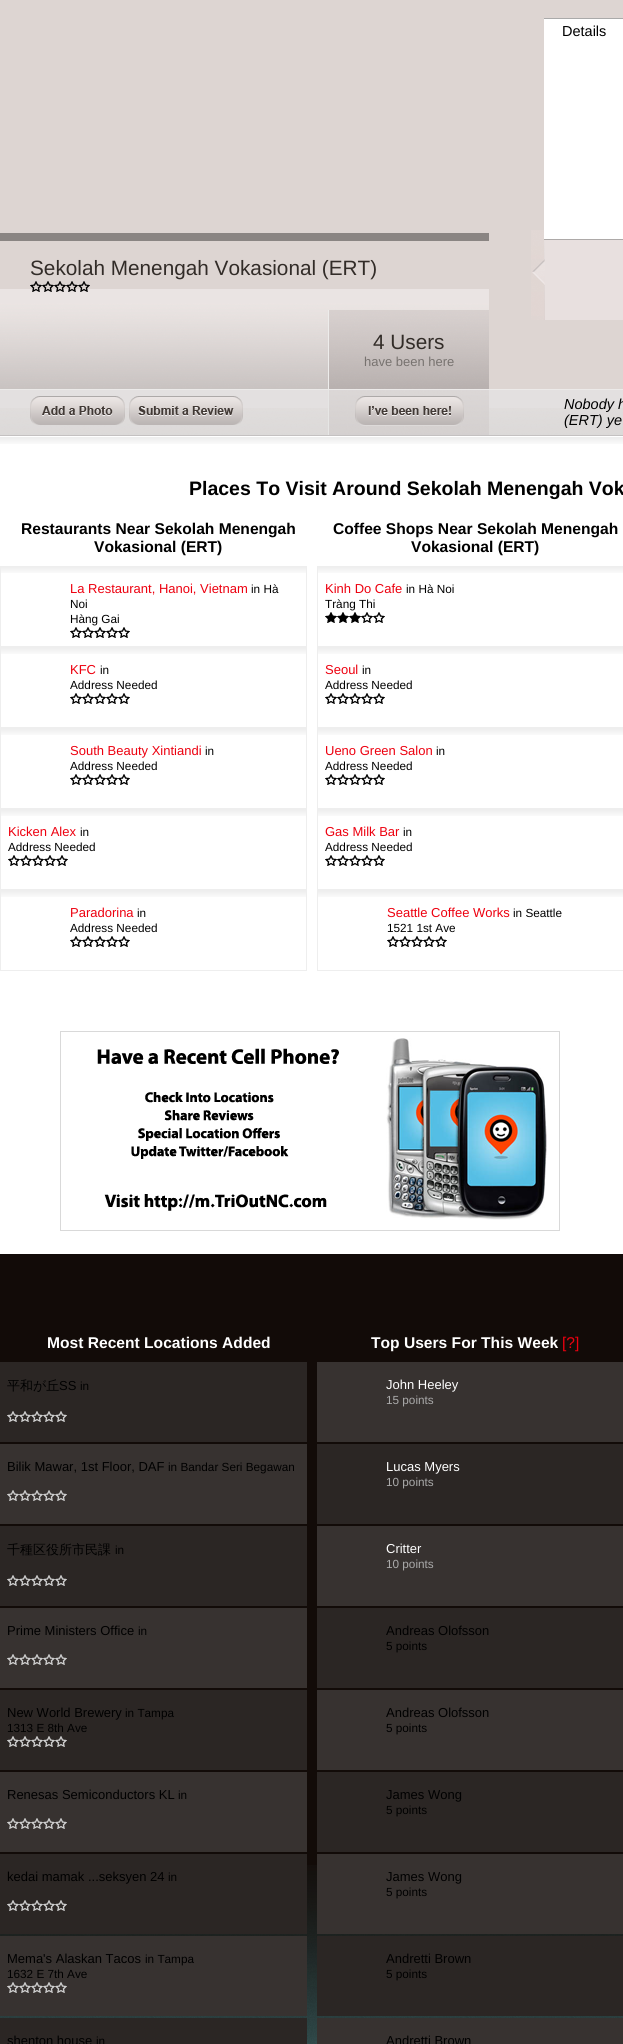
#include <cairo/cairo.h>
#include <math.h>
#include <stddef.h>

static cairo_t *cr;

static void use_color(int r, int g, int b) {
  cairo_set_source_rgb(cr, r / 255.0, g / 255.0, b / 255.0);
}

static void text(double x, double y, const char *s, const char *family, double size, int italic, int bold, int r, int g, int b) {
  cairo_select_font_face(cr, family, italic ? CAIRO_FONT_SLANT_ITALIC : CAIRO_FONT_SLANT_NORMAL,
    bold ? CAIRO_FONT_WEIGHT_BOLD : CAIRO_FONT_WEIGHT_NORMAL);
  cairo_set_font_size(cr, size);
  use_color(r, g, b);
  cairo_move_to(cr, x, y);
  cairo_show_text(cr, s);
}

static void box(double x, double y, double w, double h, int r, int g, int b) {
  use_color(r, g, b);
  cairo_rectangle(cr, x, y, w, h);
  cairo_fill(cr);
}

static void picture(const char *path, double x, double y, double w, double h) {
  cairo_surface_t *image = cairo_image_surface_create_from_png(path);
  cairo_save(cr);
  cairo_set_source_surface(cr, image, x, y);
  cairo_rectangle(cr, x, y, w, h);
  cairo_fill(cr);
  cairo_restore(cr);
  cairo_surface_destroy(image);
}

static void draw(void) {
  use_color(255, 255, 255);
  cairo_paint(cr);
  box(0, 0, 623, 389, 221, 213, 210);
  picture("img_01.png", 531, 230, 92, 90);
  box(544, 19, 79, 220, 255, 255, 255);
  box(544, 239, 79, 1, 173, 169, 168);
  box(544, 18, 79, 1, 170, 170, 170);
  picture("img_02.png", 0, 289, 489, 100);
  box(0, 233, 489, 8, 138, 133, 131);
  picture("img_03.png", 30, 281, 60, 11);
  picture("img_04.png", 329, 310, 160, 79);
  box(328, 310, 1, 79, 237, 236, 235);
  box(0, 390, 623, 18, 227, 224, 224);
  picture("img_05.png", 0, 408, 623, 27);
  box(0, 389, 623, 1, 236, 234, 233);
  box(0, 435, 623, 1, 196, 193, 193);
  picture("img_06.png", 30, 396, 95, 29);
  picture("img_07.png", 129, 396, 114, 29);
  picture("img_08.png", 329, 390, 160, 45);
  box(328, 390, 1, 45, 230, 230, 229);
  picture("img_09.png", 355, 396, 109, 30);
  picture("img_10.png", 0, 437, 623, 7);
  picture("img_11.png", 1, 566, 305, 7);
  box(306, 566, 1, 405, 238, 238, 238);
  box(0, 646, 307, 1, 238, 238, 238);
  box(0, 566, 1, 81, 238, 238, 238);
  picture("img_12.png", 70, 627, 60, 11);
  picture("img_11.png", 1, 647, 305, 7);
  box(0, 727, 307, 1, 238, 238, 238);
  box(0, 647, 1, 81, 238, 238, 238);
  picture("img_12.png", 70, 693, 60, 11);
  picture("img_11.png", 1, 728, 305, 7);
  box(0, 808, 307, 1, 238, 238, 238);
  box(0, 728, 1, 81, 238, 238, 238);
  picture("img_12.png", 70, 774, 60, 11);
  picture("img_11.png", 1, 809, 305, 7);
  box(0, 889, 307, 1, 238, 238, 238);
  box(0, 809, 1, 81, 238, 238, 238);
  picture("img_12.png", 8, 855, 60, 11);
  picture("img_11.png", 1, 890, 305, 7);
  box(0, 970, 307, 1, 238, 238, 238);
  box(0, 890, 1, 81, 238, 238, 238);
  picture("img_12.png", 70, 936, 60, 11);
  picture("img_11.png", 318, 566, 305, 7);
  box(317, 646, 306, 1, 238, 238, 238);
  box(317, 566, 1, 81, 238, 238, 238);
  picture("img_13.png", 325, 612, 60, 11);
  picture("img_11.png", 318, 647, 305, 7);
  box(317, 727, 306, 1, 238, 238, 238);
  box(317, 647, 1, 81, 238, 238, 238);
  picture("img_12.png", 325, 693, 60, 11);
  picture("img_11.png", 318, 728, 305, 7);
  box(317, 808, 306, 1, 238, 238, 238);
  box(317, 728, 1, 81, 238, 238, 238);
  picture("img_12.png", 325, 774, 60, 11);
  picture("img_11.png", 318, 809, 305, 7);
  box(317, 889, 306, 1, 238, 238, 238);
  box(317, 809, 1, 81, 238, 238, 238);
  picture("img_12.png", 325, 855, 60, 11);
  picture("img_11.png", 318, 890, 305, 7);
  box(317, 970, 306, 1, 238, 238, 238);
  box(317, 890, 1, 81, 238, 238, 238);
  picture("img_12.png", 387, 936, 60, 11);
  picture("img_14.png", 60, 1031, 500, 200);
  box(0, 1254, 623, 790, 18, 11, 8);
  picture("img_15.png", 0, 1865, 623, 179);
  box(0, 1362, 307, 80, 43, 38, 36);
  picture("img_16.png", 7, 1411, 60, 11);
  box(0, 1444, 307, 80, 55, 50, 48);
  picture("img_17.png", 7, 1490, 60, 11);
  box(0, 1526, 307, 80, 43, 38, 36);
  picture("img_16.png", 7, 1575, 60, 11);
  box(0, 1608, 307, 80, 55, 50, 48);
  picture("img_17.png", 7, 1654, 60, 11);
  box(0, 1690, 307, 80, 43, 38, 36);
  picture("img_16.png", 7, 1736, 60, 11);
  box(0, 1772, 307, 80, 55, 50, 48);
  picture("img_17.png", 7, 1818, 60, 11);
  box(0, 1854, 307, 80, 43, 38, 36);
  picture("img_16.png", 7, 1900, 60, 11);
  box(0, 1936, 307, 80, 55, 50, 48);
  picture("img_17.png", 7, 1982, 60, 11);
  box(0, 2018, 307, 26, 43, 38, 36);
  box(317, 1362, 306, 80, 55, 50, 48);
  box(317, 1444, 306, 80, 43, 38, 36);
  box(317, 1526, 306, 80, 55, 50, 48);
  box(317, 1608, 306, 80, 43, 38, 36);
  box(317, 1690, 306, 80, 55, 50, 48);
  box(317, 1772, 306, 80, 43, 38, 36);
  box(317, 1854, 306, 80, 55, 50, 48);
  box(317, 1936, 306, 80, 43, 38, 36);
  box(317, 2018, 306, 26, 55, 50, 48);
  text(562, 36, "Details", "Liberation Sans", 14.5, 0, 0, 0, 0, 0);
  text(30, 275, "Sekolah Menengah Vokasional (ERT)", "Liberation Sans", 20.75, 0, 0, 50, 44, 40);
  text(373, 349, "4 Users", "Liberation Sans", 20.75, 0, 0, 50, 44, 40);
  text(364, 366, "have been here", "Liberation Sans", 13, 0, 0, 119, 114, 111);
  text(564, 409, "Nobody h", "Liberation Sans", 14.5, 1, 0, 0, 0, 0);
  text(564, 425, "(ERT) ye", "Liberation Sans", 14.5, 1, 0, 0, 0, 0);
  text(189, 495, "Places To Visit Around Sekolah Menengah Vok", "Liberation Sans", 19.5, 0, 1, 0, 0, 0);
  text(21, 534, "Restaurants Near Sekolah Menengah", "Liberation Sans", 15.6, 0, 1, 0, 0, 0);
  text(94, 552, "Vokasional (ERT)", "Liberation Sans", 15.6, 0, 1, 0, 0, 0);
  text(70, 593, "La Restaurant, Hanoi, Vietnam", "Liberation Sans", 13, 0, 0, 237, 0, 15);
  text(251, 593, "in Hà", "Liberation Sans", 11.75, 0, 0, 0, 0, 0);
  text(70, 608, "Noi", "Liberation Sans", 11.75, 0, 0, 0, 0, 0);
  text(70, 623, "Hàng Gai", "Liberation Sans", 11.75, 0, 0, 0, 0, 0);
  text(70, 674, "KFC", "Liberation Sans", 13, 0, 0, 237, 0, 15);
  text(100, 674, "in", "Liberation Sans", 11.75, 0, 0, 0, 0, 0);
  text(70, 689, "Address Needed", "Liberation Sans", 11.75, 0, 0, 0, 0, 0);
  text(70, 755, "South Beauty Xintiandi", "Liberation Sans", 13, 0, 0, 237, 0, 15);
  text(205, 755, "in", "Liberation Sans", 11.75, 0, 0, 0, 0, 0);
  text(70, 770, "Address Needed", "Liberation Sans", 11.75, 0, 0, 0, 0, 0);
  text(8, 836, "Kicken Alex", "Liberation Sans", 13, 0, 0, 237, 0, 15);
  text(80, 836, "in", "Liberation Sans", 11.75, 0, 0, 0, 0, 0);
  text(8, 851, "Address Needed", "Liberation Sans", 11.75, 0, 0, 0, 0, 0);
  text(70, 917, "Paradorina", "Liberation Sans", 13, 0, 0, 237, 0, 15);
  text(137, 917, "in", "Liberation Sans", 11.75, 0, 0, 0, 0, 0);
  text(70, 932, "Address Needed", "Liberation Sans", 11.75, 0, 0, 0, 0, 0);
  text(333, 534, "Coffee Shops Near Sekolah Menengah", "Liberation Sans", 15.6, 0, 1, 0, 0, 0);
  text(411, 552, "Vokasional (ERT)", "Liberation Sans", 15.6, 0, 1, 0, 0, 0);
  text(325, 593, "Kinh Do Cafe", "Liberation Sans", 13, 0, 0, 237, 0, 15);
  text(406, 593, "in Hà Noi", "Liberation Sans", 11.75, 0, 0, 0, 0, 0);
  text(325, 608, "Tràng Thi", "Liberation Sans", 11.75, 0, 0, 0, 0, 0);
  text(325, 674, "Seoul", "Liberation Sans", 13, 0, 0, 237, 0, 15);
  text(362, 674, "in", "Liberation Sans", 11.75, 0, 0, 0, 0, 0);
  text(325, 689, "Address Needed", "Liberation Sans", 11.75, 0, 0, 0, 0, 0);
  text(325, 755, "Ueno Green Salon", "Liberation Sans", 13, 0, 0, 237, 0, 15);
  text(436, 755, "in", "Liberation Sans", 11.75, 0, 0, 0, 0, 0);
  text(325, 770, "Address Needed", "Liberation Sans", 11.75, 0, 0, 0, 0, 0);
  text(325, 836, "Gas Milk Bar", "Liberation Sans", 13, 0, 0, 237, 0, 15);
  text(403, 836, "in", "Liberation Sans", 11.75, 0, 0, 0, 0, 0);
  text(325, 851, "Address Needed", "Liberation Sans", 11.75, 0, 0, 0, 0, 0);
  text(387, 917, "Seattle Coffee Works", "Liberation Sans", 13, 0, 0, 237, 0, 15);
  text(513, 917, "in Seattle", "Liberation Sans", 11.75, 0, 0, 0, 0, 0);
  text(387, 932, "1521 1st Ave", "Liberation Sans", 11.75, 0, 0, 0, 0, 0);
  text(47, 1348, "Most Recent Locations Added", "Liberation Sans", 15.6, 0, 1, 255, 255, 255);
  text(7, 1390, "平和が丘", "WenQuanYi Zen Hei Medium", 13, 0, 0, 0, 0, 0);
  text(59, 1390, "SS", "Liberation Sans", 13, 0, 0, 0, 0, 0);
  text(80, 1390, "in", "Liberation Sans", 11.75, 0, 0, 0, 0, 0);
  text(7, 1471, "Bilik Mawar, 1st Floor, DAF", "Liberation Sans", 13, 0, 0, 0, 0, 0);
  text(168, 1471, "in Bandar Seri Begawan", "Liberation Sans", 11.75, 0, 0, 0, 0, 0);
  text(7, 1554, "千種区役所市民課", "WenQuanYi Zen Hei Medium", 13, 0, 0, 0, 0, 0);
  text(115, 1554, "in", "Liberation Sans", 11.75, 0, 0, 0, 0, 0);
  text(7, 1635, "Prime Ministers Office", "Liberation Sans", 13, 0, 0, 0, 0, 0);
  text(138, 1635, "in", "Liberation Sans", 11.75, 0, 0, 0, 0, 0);
  text(7, 1717, "New World Brewery", "Liberation Sans", 13, 0, 0, 0, 0, 0);
  text(125, 1717, "in Tampa", "Liberation Sans", 11.75, 0, 0, 0, 0, 0);
  text(7, 1732, "1313 E 8th Ave", "Liberation Sans", 11.75, 0, 0, 0, 0, 0);
  text(7, 1799, "Renesas Semiconductors KL", "Liberation Sans", 13, 0, 0, 0, 0, 0);
  text(178, 1799, "in", "Liberation Sans", 11.75, 0, 0, 0, 0, 0);
  text(7, 1881, "kedai mamak ...seksyen 24", "Liberation Sans", 13, 0, 0, 0, 0, 0);
  text(168, 1881, "in", "Liberation Sans", 11.75, 0, 0, 0, 0, 0);
  text(7, 1963, "Mema's Alaskan Tacos", "Liberation Sans", 13, 0, 0, 0, 0, 0);
  text(145, 1963, "in Tampa", "Liberation Sans", 11.75, 0, 0, 0, 0, 0);
  text(7, 1978, "1632 E 7th Ave", "Liberation Sans", 11.75, 0, 0, 0, 0, 0);
  text(7, 2045, "shenton house", "Liberation Sans", 13, 0, 0, 0, 0, 0);
  text(96, 2045, "in", "Liberation Sans", 11.75, 0, 0, 0, 0, 0);
  text(371, 1348, "Top Users For This Week", "Liberation Sans", 15.6, 0, 1, 255, 255, 255);
  text(562, 1348, "[?]", "Liberation Sans", 15.6, 0, 0, 237, 0, 15);
  text(386, 1389, "John Heeley", "Liberation Sans", 13, 0, 0, 255, 255, 255);
  text(386, 1404, "15 points", "Liberation Sans", 11.75, 0, 0, 170, 170, 170);
  text(386, 1471, "Lucas Myers", "Liberation Sans", 13, 0, 0, 255, 255, 255);
  text(386, 1486, "10 points", "Liberation Sans", 11.75, 0, 0, 170, 170, 170);
  text(386, 1553, "Critter", "Liberation Sans", 13, 0, 0, 255, 255, 255);
  text(386, 1568, "10 points", "Liberation Sans", 11.75, 0, 0, 170, 170, 170);
  text(386, 1635, "Andreas Olofsson", "Liberation Sans", 13, 0, 0, 0, 0, 0);
  text(386, 1650, "5 points", "Liberation Sans", 11.75, 0, 0, 0, 0, 0);
  text(386, 1717, "Andreas Olofsson", "Liberation Sans", 13, 0, 0, 0, 0, 0);
  text(386, 1732, "5 points", "Liberation Sans", 11.75, 0, 0, 0, 0, 0);
  text(386, 1799, "James Wong", "Liberation Sans", 13, 0, 0, 0, 0, 0);
  text(386, 1814, "5 points", "Liberation Sans", 11.75, 0, 0, 0, 0, 0);
  text(386, 1881, "James Wong", "Liberation Sans", 13, 0, 0, 0, 0, 0);
  text(386, 1896, "5 points", "Liberation Sans", 11.75, 0, 0, 0, 0, 0);
  text(386, 1963, "Andretti Brown", "Liberation Sans", 13, 0, 0, 0, 0, 0);
  text(386, 1978, "5 points", "Liberation Sans", 11.75, 0, 0, 0, 0, 0);
  text(386, 2045, "Andretti Brown", "Liberation Sans", 13, 0, 0, 0, 0, 0);
}

int main(void) {
  cairo_surface_t *surface = cairo_image_surface_create(CAIRO_FORMAT_RGB24, 623, 2044);
  cr = cairo_create(surface);
  cairo_font_options_t *options = cairo_font_options_create();
  cairo_font_options_set_hint_metrics(options, CAIRO_HINT_METRICS_OFF);
  cairo_font_options_set_hint_style(options, CAIRO_HINT_STYLE_NONE);
  cairo_set_font_options(cr, options);
  cairo_set_miter_limit(cr, 4);
  draw();
  cairo_surface_write_to_png(surface, "out.png");
  cairo_font_options_destroy(options);
  cairo_destroy(cr);
  cairo_surface_destroy(surface);
  return 0;
}
